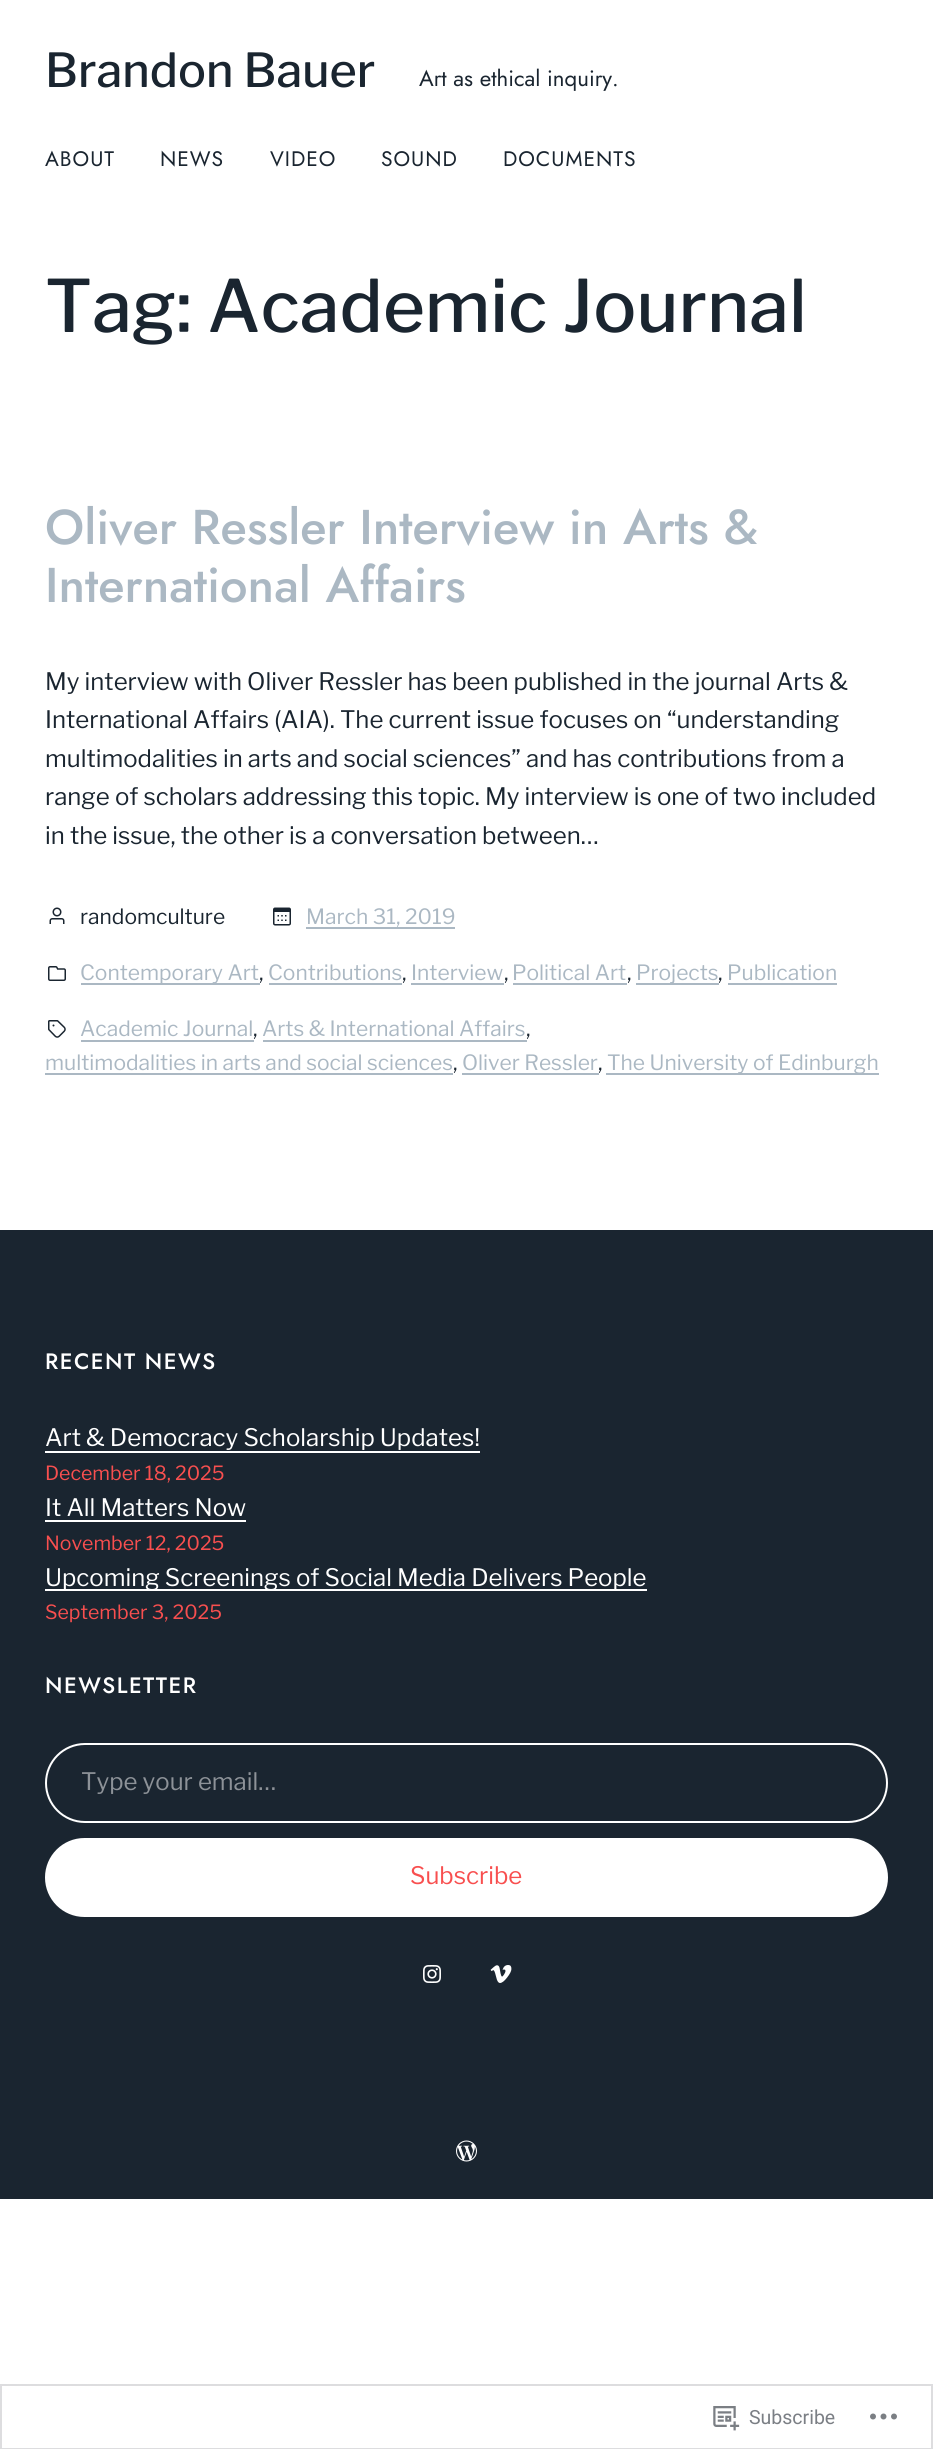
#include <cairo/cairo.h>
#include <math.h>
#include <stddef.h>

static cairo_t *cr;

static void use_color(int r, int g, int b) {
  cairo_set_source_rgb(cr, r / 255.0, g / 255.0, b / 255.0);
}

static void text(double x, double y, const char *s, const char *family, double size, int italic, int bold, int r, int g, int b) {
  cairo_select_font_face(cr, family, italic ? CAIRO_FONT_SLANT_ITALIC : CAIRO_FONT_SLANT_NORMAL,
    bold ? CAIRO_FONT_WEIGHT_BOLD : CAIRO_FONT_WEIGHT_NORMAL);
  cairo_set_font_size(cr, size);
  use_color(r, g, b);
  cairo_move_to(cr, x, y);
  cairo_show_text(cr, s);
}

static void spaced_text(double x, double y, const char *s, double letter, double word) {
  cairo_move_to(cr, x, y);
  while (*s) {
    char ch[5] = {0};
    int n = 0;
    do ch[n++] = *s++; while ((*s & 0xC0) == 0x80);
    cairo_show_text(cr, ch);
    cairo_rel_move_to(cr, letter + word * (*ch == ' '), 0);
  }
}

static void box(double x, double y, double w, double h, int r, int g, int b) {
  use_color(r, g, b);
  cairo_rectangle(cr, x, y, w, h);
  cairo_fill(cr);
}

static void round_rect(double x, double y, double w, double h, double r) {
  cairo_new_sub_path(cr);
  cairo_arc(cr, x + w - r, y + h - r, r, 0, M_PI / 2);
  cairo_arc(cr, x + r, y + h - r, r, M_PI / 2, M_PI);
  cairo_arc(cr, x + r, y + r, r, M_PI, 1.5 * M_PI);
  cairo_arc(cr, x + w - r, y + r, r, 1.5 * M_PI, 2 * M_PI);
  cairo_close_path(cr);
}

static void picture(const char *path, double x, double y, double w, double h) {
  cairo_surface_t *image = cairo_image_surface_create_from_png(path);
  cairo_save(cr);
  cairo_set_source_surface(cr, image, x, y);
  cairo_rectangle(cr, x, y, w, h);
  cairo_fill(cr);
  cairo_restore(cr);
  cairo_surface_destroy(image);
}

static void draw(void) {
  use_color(255, 255, 255);
  cairo_paint(cr);
  picture("img_01.png", 49, 907, 16, 17);
  picture("img_02.png", 273, 907, 18, 19);
  box(306, 927, 149, 2, 171, 184, 195);
  picture("img_03.png", 48, 966, 18, 15);
  box(81, 983, 179, 2, 171, 184, 195);
  box(269, 983, 133, 2, 171, 184, 195);
  box(411, 983, 93, 2, 171, 184, 195);
  box(513, 983, 114, 2, 171, 184, 195);
  box(636, 983, 83, 2, 171, 184, 195);
  box(728, 983, 109, 2, 171, 184, 195);
  picture("img_04.png", 48, 1020, 18, 18);
  box(81, 1040, 173, 2, 171, 184, 195);
  box(263, 1040, 264, 2, 171, 184, 195);
  box(45, 1073, 408, 2, 171, 184, 195);
  box(462, 1073, 137, 2, 171, 184, 195);
  box(606, 1073, 273, 2, 171, 184, 195);
  box(0, 1230, 933, 969, 26, 37, 48);
  picture("img_05.png", 456, 2140, 21, 22);
  box(45, 1451, 435, 2, 255, 255, 255);
  box(45, 1520, 201, 2, 255, 255, 255);
  box(45, 1589, 602, 2, 255, 255, 255);
  round_rect(46, 1744, 841, 78, 39);
  cairo_stroke(cr);
  round_rect(46, 1839, 841, 77, 38.5);
  cairo_fill_preserve(cr);
  cairo_stroke(cr);
  picture("img_06.png", 423, 1965, 18, 18);
  picture("img_07.png", 490, 1965, 22, 18);
  cairo_rectangle(cr, 1, 2385, 931, 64);
  use_color(221, 221, 223);
  cairo_stroke(cr);
  picture("img_08.png", 713, 2406, 27, 25);
  picture("img_09.png", 870, 2413, 27, 7);
  text(45, 87, "Brandon Bauer", "Libre Franklin Medium", 46.75, 0, 0, 26, 37, 48);
  text(419, 86, "Art as ethical inquiry.", "Jost", 22.25, 0, 0, 26, 37, 48);
  cairo_set_font_size(cr, 21);
  spaced_text(45, 166, "ABOUT", 1, 0);
  spaced_text(160, 166, "NEWS", 1, 0);
  spaced_text(270, 166, "VIDEO", 1, 0);
  spaced_text(381, 166, "SOUND", 1, 0);
  spaced_text(503, 166, "DOCUMENTS", 1, 0);
  text(45, 332, "Tag: Academic Journal", "Libre Franklin Medium", 72, 0, 0, 26, 37, 48);
  text(45, 544, "Oliver Ressler Interview in Arts &", "Jost Medium", 48.8, 0, 0, 171, 184, 195);
  text(45, 602, "International Affairs", "Jost Medium", 48.8, 0, 0, 171, 184, 195);
  text(45, 690, "My interview with Oliver Ressler has been published in the journal Arts &", "Libre Franklin", 24, 0, 0, 26, 37, 48);
  text(45, 728, "International Affairs (AIA). The current issue focuses on “understanding", "Libre Franklin", 24, 0, 0, 26, 37, 48);
  text(45, 767, "multimodalities in arts and social sciences” and has contributions from a", "Libre Franklin", 24, 0, 0, 26, 37, 48);
  text(45, 805, "range of scholars addressing this topic. My interview is one of two included", "Libre Franklin", 24, 0, 0, 26, 37, 48);
  text(45, 844, "in the issue, the other is a conversation between…", "Libre Franklin", 24, 0, 0, 26, 37, 48);
  text(80, 924, "randomculture", "Libre Franklin", 21, 0, 0, 26, 37, 48);
  text(306, 924, "March 31, 2019", "Libre Franklin", 21, 0, 0, 171, 184, 195);
  text(80, 980, "Contemporary Art", "Libre Franklin", 21, 0, 0, 171, 184, 195);
  text(259, 980, ",", "Libre Franklin", 21, 0, 0, 26, 37, 48);
  text(268, 980, "Contributions", "Libre Franklin", 21, 0, 0, 171, 184, 195);
  text(402, 980, ",", "Libre Franklin", 21, 0, 0, 26, 37, 48);
  text(411, 980, "Interview", "Libre Franklin", 21, 0, 0, 171, 184, 195);
  text(504, 980, ",", "Libre Franklin", 21, 0, 0, 26, 37, 48);
  text(512, 980, "Political Art", "Libre Franklin", 21, 0, 0, 171, 184, 195);
  text(627, 980, ",", "Libre Franklin", 21, 0, 0, 26, 37, 48);
  text(636, 980, "Projects", "Libre Franklin", 21, 0, 0, 171, 184, 195);
  text(718, 980, ",", "Libre Franklin", 21, 0, 0, 26, 37, 48);
  text(727, 980, "Publication", "Libre Franklin", 21, 0, 0, 171, 184, 195);
  text(80, 1036, "Academic Journal", "Libre Franklin", 21, 0, 0, 171, 184, 195);
  text(253, 1036, ",", "Libre Franklin", 21, 0, 0, 26, 37, 48);
  text(262, 1036, "Arts & International Affairs", "Libre Franklin", 21, 0, 0, 171, 184, 195);
  text(526, 1036, ",", "Libre Franklin", 21, 0, 0, 26, 37, 48);
  text(45, 1070, "multimodalities in arts and social sciences", "Libre Franklin", 21, 0, 0, 171, 184, 195);
  text(453, 1070, ",", "Libre Franklin", 21, 0, 0, 26, 37, 48);
  text(462, 1070, "Oliver Ressler", "Libre Franklin", 21, 0, 0, 171, 184, 195);
  text(598, 1070, ",", "Libre Franklin", 21, 0, 0, 26, 37, 48);
  text(607, 1070, "The University of Edinburgh", "Libre Franklin", 21, 0, 0, 171, 184, 195);
  cairo_select_font_face(cr, "Jost Medium", CAIRO_FONT_SLANT_NORMAL, CAIRO_FONT_WEIGHT_NORMAL);
  cairo_set_font_size(cr, 22.25);
  use_color(255, 255, 255);
  spaced_text(45, 1369, "RECENT NEWS", 1.5, 0);
  text(45, 1446, "Art & Democracy Scholarship Updates!", "Libre Franklin", 24, 0, 0, 255, 255, 255);
  text(45, 1480, "December 18, 2025", "Libre Franklin", 19.5, 0, 0, 248, 79, 79);
  text(45, 1516, "It All Matters Now", "Libre Franklin", 24, 0, 0, 255, 255, 255);
  text(45, 1550, "November 12, 2025", "Libre Franklin", 19.5, 0, 0, 248, 79, 79);
  text(45, 1586, "Upcoming Screenings of Social Media Delivers People", "Libre Franklin", 24, 0, 0, 255, 255, 255);
  text(45, 1619, "September 3, 2025", "Libre Franklin", 19.5, 0, 0, 248, 79, 79);
  cairo_select_font_face(cr, "Jost Medium", CAIRO_FONT_SLANT_NORMAL, CAIRO_FONT_WEIGHT_NORMAL);
  cairo_set_font_size(cr, 22.25);
  use_color(255, 255, 255);
  spaced_text(45, 1693, "NEWSLETTER", 1.5, 0);
  text(81, 1790, "Type your email…", "Libre Franklin", 24, 0, 0, 141, 146, 152);
  text(410, 1884, "Subscribe", "Libre Franklin", 24, 0, 0, 248, 79, 79);
  text(749, 2424, "Subscribe", "Roboto", 19.5, 0, 0, 123, 127, 133);
}

int main(void) {
  cairo_surface_t *surface = cairo_image_surface_create(CAIRO_FORMAT_RGB24, 933, 2449);
  cr = cairo_create(surface);
  cairo_font_options_t *options = cairo_font_options_create();
  cairo_font_options_set_hint_metrics(options, CAIRO_HINT_METRICS_OFF);
  cairo_font_options_set_hint_style(options, CAIRO_HINT_STYLE_NONE);
  cairo_set_font_options(cr, options);
  cairo_set_miter_limit(cr, 4);
  draw();
  cairo_surface_write_to_png(surface, "out.png");
  cairo_font_options_destroy(options);
  cairo_destroy(cr);
  cairo_surface_destroy(surface);
  return 0;
}
